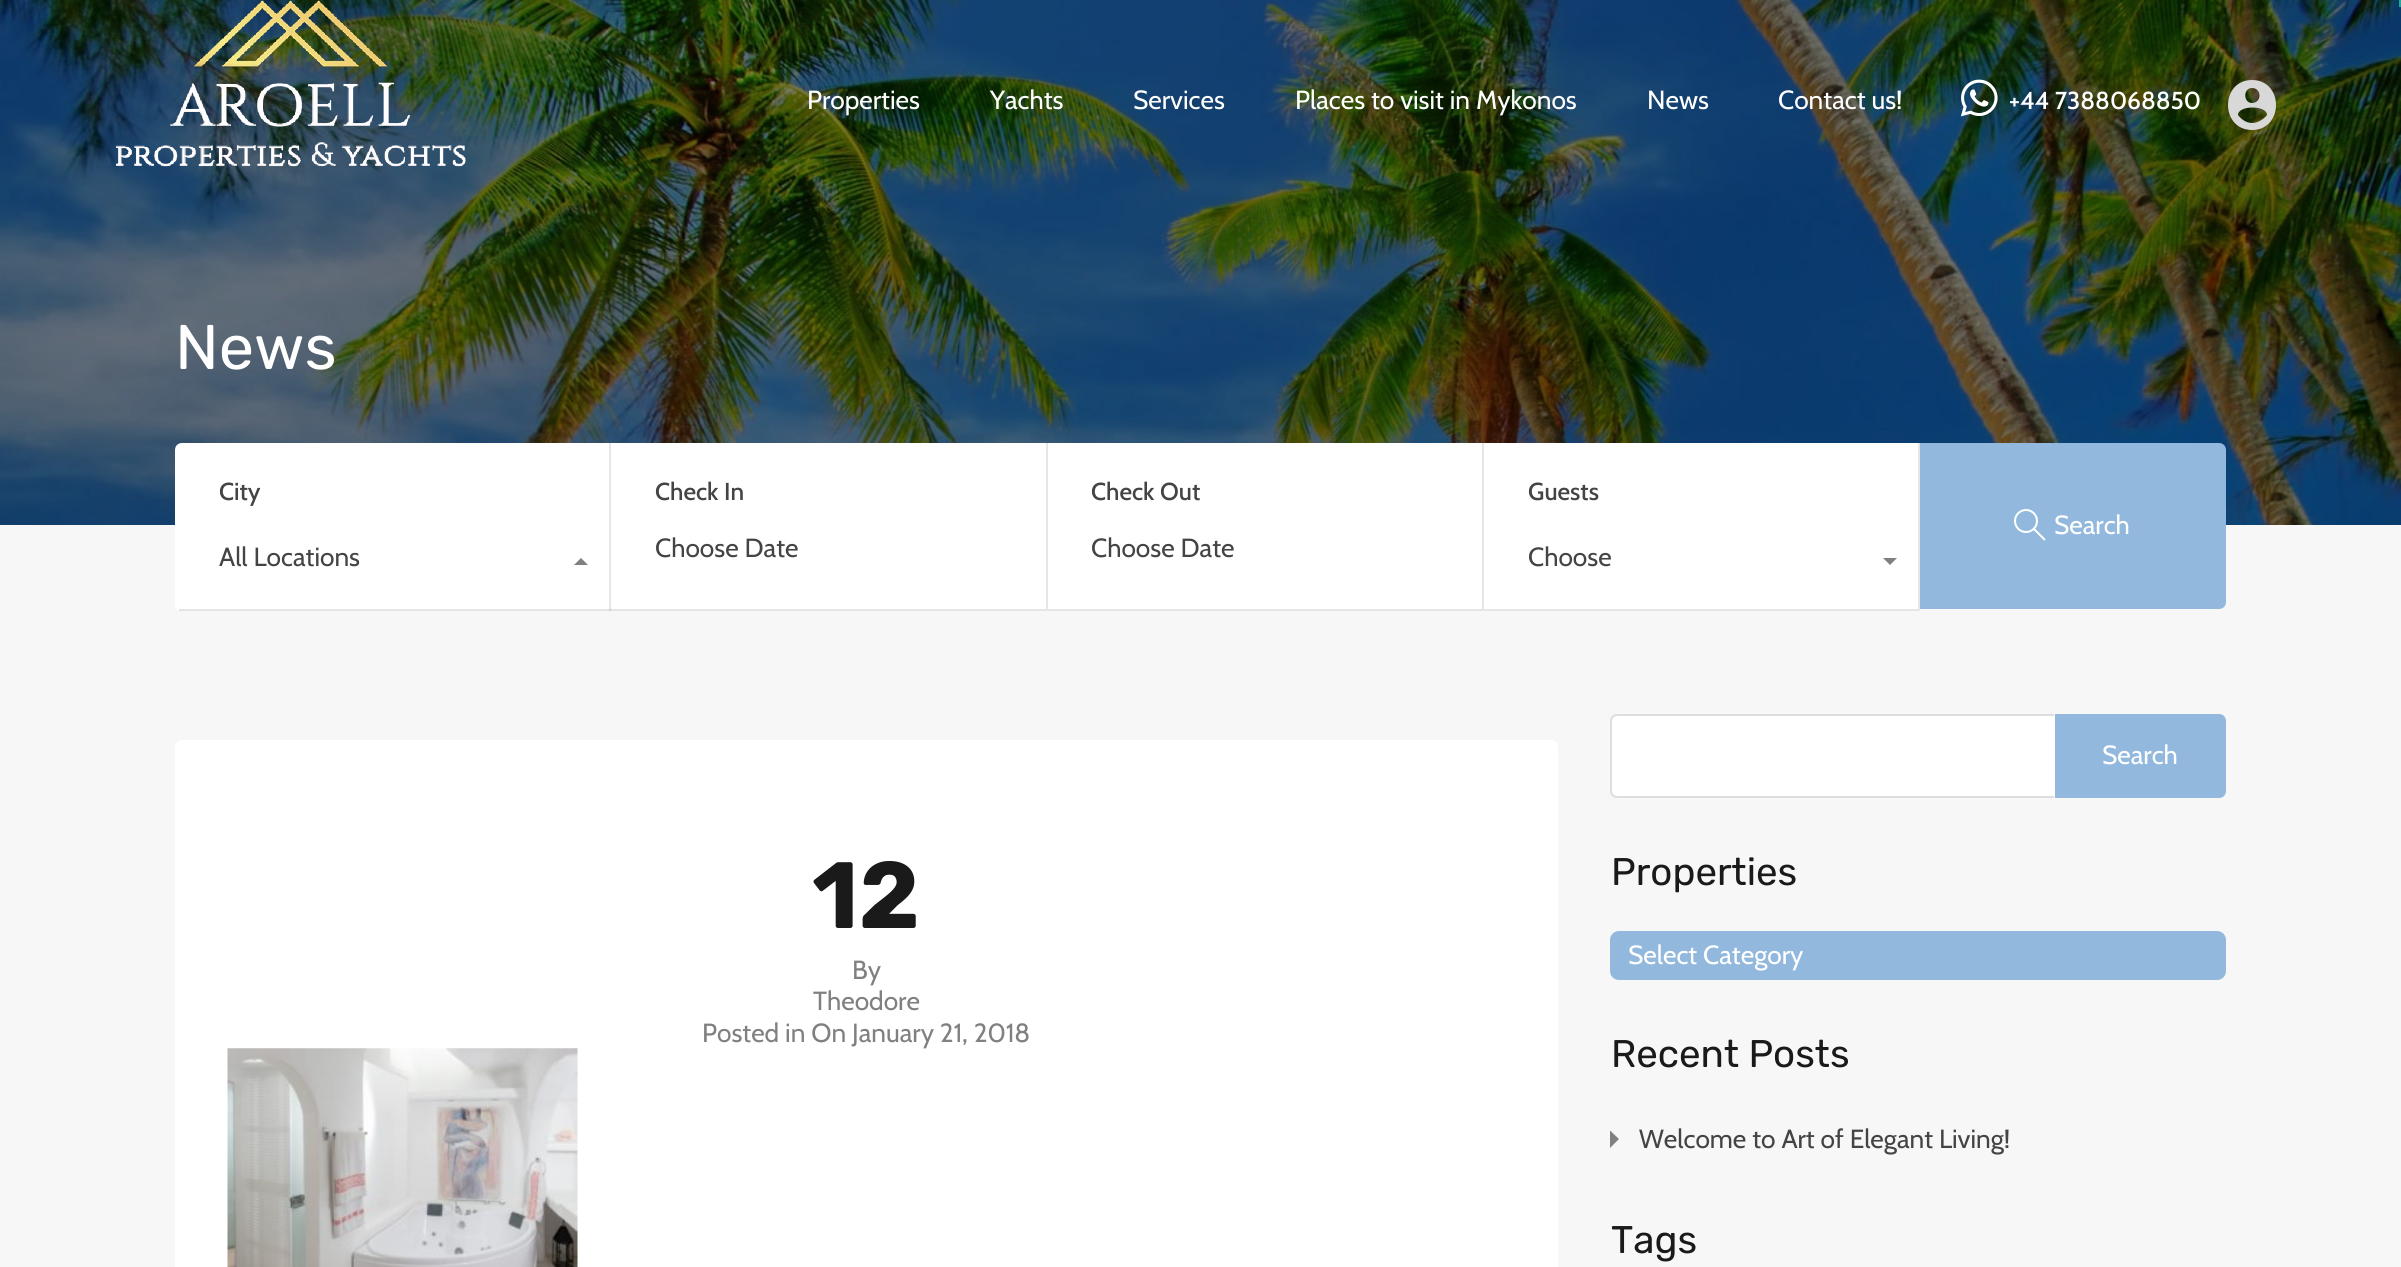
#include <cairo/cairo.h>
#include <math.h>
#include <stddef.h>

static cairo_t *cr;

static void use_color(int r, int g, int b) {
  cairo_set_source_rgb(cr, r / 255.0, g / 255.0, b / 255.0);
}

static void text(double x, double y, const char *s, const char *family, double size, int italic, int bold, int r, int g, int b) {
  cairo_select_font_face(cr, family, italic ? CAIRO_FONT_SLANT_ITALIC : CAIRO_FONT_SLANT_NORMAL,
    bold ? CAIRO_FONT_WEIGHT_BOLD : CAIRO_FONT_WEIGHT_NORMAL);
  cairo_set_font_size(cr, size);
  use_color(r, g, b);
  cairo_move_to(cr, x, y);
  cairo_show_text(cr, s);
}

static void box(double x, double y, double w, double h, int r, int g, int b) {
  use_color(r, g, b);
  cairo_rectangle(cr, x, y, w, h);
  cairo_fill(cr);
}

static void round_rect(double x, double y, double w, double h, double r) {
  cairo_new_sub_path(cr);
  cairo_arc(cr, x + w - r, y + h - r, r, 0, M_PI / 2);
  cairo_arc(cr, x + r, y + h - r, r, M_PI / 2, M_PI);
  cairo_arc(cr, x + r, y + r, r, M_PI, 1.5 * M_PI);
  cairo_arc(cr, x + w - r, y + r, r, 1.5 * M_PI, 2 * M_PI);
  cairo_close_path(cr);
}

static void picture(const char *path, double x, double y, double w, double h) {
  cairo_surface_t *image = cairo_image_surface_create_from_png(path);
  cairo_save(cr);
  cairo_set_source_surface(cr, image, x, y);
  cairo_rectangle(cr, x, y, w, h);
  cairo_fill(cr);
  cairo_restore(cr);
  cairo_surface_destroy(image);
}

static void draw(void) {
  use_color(247, 247, 247);
  cairo_paint(cr);
  picture("img_03.png", 0, 0, 2401, 525);
  cairo_new_path(cr);
  cairo_move_to(cr, 2399, 3.5);
  cairo_line_to(cr, 2401, 3.5);
  use_color(30, 166, 154);
  cairo_set_line_width(cr, 7.2);
  cairo_stroke(cr);
  picture("img_01.png", 116, 0, 350, 167);
  picture("img_02.png", 1960, 79, 38, 38);
  use_color(216, 216, 216);
  cairo_new_path(cr);
  cairo_move_to(cr, 2252, 80);
  cairo_curve_to(cr, 2220, 80, 2220, 130, 2252, 130);
  cairo_curve_to(cr, 2284, 130, 2284, 80, 2252, 80);
  cairo_close_path(cr);
  cairo_move_to(cr, 2252, 88);
  cairo_curve_to(cr, 2262, 88, 2262, 103, 2252, 103);
  cairo_curve_to(cr, 2243, 103, 2243, 88, 2252, 88);
  cairo_close_path(cr);
  cairo_move_to(cr, 2252, 123);
  cairo_curve_to(cr, 2246, 123, 2241, 119, 2238, 115);
  cairo_curve_to(cr, 2238, 105, 2267, 105, 2267, 115);
  cairo_curve_to(cr, 2264, 119, 2258, 123, 2252, 123);
  cairo_close_path(cr);
  cairo_fill(cr);
  use_color(146, 185, 221);
  cairo_new_path(cr);
  cairo_move_to(cr, 1918, 443);
  cairo_line_to(cr, 2219, 443);
  cairo_curve_to(cr, 2223, 443, 2226, 446, 2226, 450);
  cairo_line_to(cr, 2226, 602);
  cairo_curve_to(cr, 2226, 606, 2223, 609, 2219, 609);
  cairo_line_to(cr, 1918, 609);
  cairo_close_path(cr);
  cairo_fill(cr);
  use_color(255, 255, 255);
  cairo_new_path(cr);
  cairo_move_to(cr, 182, 443);
  cairo_line_to(cr, 1920, 443);
  cairo_line_to(cr, 1920, 611);
  cairo_line_to(cr, 182, 611);
  cairo_curve_to(cr, 178, 611, 175, 608, 175, 604);
  cairo_line_to(cr, 175, 450);
  cairo_curve_to(cr, 175, 446, 178, 443, 182, 443);
  cairo_close_path(cr);
  cairo_fill(cr);
  box(609, 443, 2, 168, 230, 230, 230);
  cairo_set_source_rgba(cr, 0.502, 0.502, 0.502, 0.2);
  cairo_rectangle(cr, 179, 609, 432, 2);
  cairo_fill(cr);
  use_color(128, 128, 128);
  cairo_new_path(cr);
  cairo_move_to(cr, 588, 565);
  cairo_line_to(cr, 574, 565);
  cairo_line_to(cr, 581, 558);
  cairo_close_path(cr);
  cairo_fill(cr);
  use_color(230, 230, 230);
  cairo_new_path(cr);
  cairo_move_to(cr, 1048, 443);
  cairo_line_to(cr, 1048, 611);
  cairo_line_to(cr, 1046, 609);
  cairo_line_to(cr, 1046, 443);
  cairo_close_path(cr);
  cairo_fill(cr);
  cairo_set_source_rgba(cr, 0.502, 0.502, 0.502, 0.2);
  cairo_new_path(cr);
  cairo_move_to(cr, 1048, 611);
  cairo_line_to(cr, 611, 611);
  cairo_line_to(cr, 611, 609);
  cairo_line_to(cr, 1046, 609);
  cairo_close_path(cr);
  cairo_fill(cr);
  use_color(230, 230, 230);
  cairo_new_path(cr);
  cairo_move_to(cr, 1484, 443);
  cairo_line_to(cr, 1484, 611);
  cairo_line_to(cr, 1482, 609);
  cairo_line_to(cr, 1482, 443);
  cairo_close_path(cr);
  cairo_fill(cr);
  cairo_set_source_rgba(cr, 0.502, 0.502, 0.502, 0.2);
  cairo_new_path(cr);
  cairo_move_to(cr, 1484, 611);
  cairo_line_to(cr, 1048, 611);
  cairo_line_to(cr, 1048, 609);
  cairo_line_to(cr, 1482, 609);
  cairo_close_path(cr);
  cairo_fill(cr);
  use_color(230, 230, 230);
  cairo_new_path(cr);
  cairo_move_to(cr, 1920, 443);
  cairo_line_to(cr, 1920, 611);
  cairo_line_to(cr, 1918, 609);
  cairo_line_to(cr, 1918, 443);
  cairo_close_path(cr);
  cairo_fill(cr);
  cairo_set_source_rgba(cr, 0.502, 0.502, 0.502, 0.2);
  cairo_new_path(cr);
  cairo_move_to(cr, 1920, 611);
  cairo_line_to(cr, 1484, 611);
  cairo_line_to(cr, 1484, 609);
  cairo_line_to(cr, 1918, 609);
  cairo_close_path(cr);
  cairo_fill(cr);
  use_color(128, 128, 128);
  cairo_new_path(cr);
  cairo_move_to(cr, 1883, 558);
  cairo_line_to(cr, 1897, 558);
  cairo_line_to(cr, 1890, 565);
  cairo_close_path(cr);
  cairo_fill(cr);
  cairo_arc(cr, 2026, 521, 11, 0, 2 * M_PI);
  use_color(255, 255, 255);
  cairo_set_line_width(cr, 2);
  cairo_stroke(cr);
  cairo_new_path(cr);
  cairo_move_to(cr, 2034, 529);
  cairo_line_to(cr, 2045, 540);
  cairo_set_line_join(cr, CAIRO_LINE_JOIN_ROUND);
  cairo_stroke(cr);
  round_rect(175, 740, 1383, 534, 7);
  cairo_fill(cr);
  picture("img_04.png", 227, 1048, 351, 219);
  cairo_new_path(cr);
  cairo_move_to(cr, 1617, 716);
  cairo_line_to(cr, 2055, 716);
  cairo_line_to(cr, 2055, 796);
  cairo_line_to(cr, 1617, 796);
  cairo_curve_to(cr, 1614, 796, 1612, 794, 1612, 791);
  cairo_line_to(cr, 1612, 721);
  cairo_curve_to(cr, 1612, 718, 1614, 716, 1617, 716);
  cairo_close_path(cr);
  cairo_fill(cr);
  use_color(221, 221, 221);
  cairo_set_fill_rule(cr, CAIRO_FILL_RULE_EVEN_ODD);
  cairo_new_path(cr);
  cairo_move_to(cr, 1617, 714);
  cairo_line_to(cr, 2054, 714);
  cairo_line_to(cr, 2054, 798);
  cairo_line_to(cr, 1617, 798);
  cairo_curve_to(cr, 1613, 798, 1610, 795, 1610, 791);
  cairo_line_to(cr, 1610, 721);
  cairo_curve_to(cr, 1610, 717, 1613, 714, 1617, 714);
  cairo_close_path(cr);
  cairo_move_to(cr, 1617, 716);
  cairo_line_to(cr, 2054, 716);
  cairo_line_to(cr, 2054, 796);
  cairo_line_to(cr, 1617, 796);
  cairo_curve_to(cr, 1614, 796, 1612, 794, 1612, 791);
  cairo_line_to(cr, 1612, 721);
  cairo_curve_to(cr, 1612, 718, 1614, 716, 1617, 716);
  cairo_close_path(cr);
  cairo_fill(cr);
  use_color(146, 185, 221);
  cairo_new_path(cr);
  cairo_move_to(cr, 2055, 714);
  cairo_line_to(cr, 2219, 714);
  cairo_curve_to(cr, 2223, 714, 2226, 717, 2226, 721);
  cairo_line_to(cr, 2226, 791);
  cairo_curve_to(cr, 2226, 795, 2223, 798, 2219, 798);
  cairo_line_to(cr, 2055, 798);
  cairo_close_path(cr);
  cairo_fill(cr);
  round_rect(1610, 931, 616, 49, 9);
  cairo_fill(cr);
  use_color(128, 128, 128);
  cairo_set_fill_rule(cr, CAIRO_FILL_RULE_WINDING);
  cairo_new_path(cr);
  cairo_move_to(cr, 1610, 1148);
  cairo_line_to(cr, 1610, 1130.5);
  cairo_line_to(cr, 1619, 1139);
  cairo_close_path(cr);
  cairo_fill(cr);
  text(807, 109, "Properties", "Cabin", 26.25, 0, 0, 255, 255, 255);
  text(990, 109, "Yachts", "Cabin", 26.25, 0, 0, 255, 255, 255);
  text(1133, 109, "Services", "Cabin", 26.25, 0, 0, 255, 255, 255);
  text(1295, 109, "Places to visit in Mykonos", "Cabin", 26.25, 0, 0, 255, 255, 255);
  text(1647, 109, "News", "Cabin", 26.25, 0, 0, 255, 255, 255);
  text(1778, 109, "Contact us!", "Cabin", 26.25, 0, 0, 255, 255, 255);
  text(2009, 109, "+44 7388068850", "Cabin Medium", 24.5, 0, 0, 255, 255, 255);
  text(175, 369, "News", "Rubik", 63, 0, 0, 255, 255, 255);
  text(219, 500, "City", "Cabin Medium", 24.5, 0, 0, 68, 68, 68);
  text(219, 566, "All Locations", "Cabin", 26.25, 0, 0, 68, 68, 68);
  text(655, 500, "Check In", "Cabin Medium", 24.5, 0, 0, 68, 68, 68);
  text(655, 557, "Choose Date", "Cabin", 26.25, 0, 0, 68, 68, 68);
  text(1091, 500, "Check Out", "Cabin Medium", 24.5, 0, 0, 68, 68, 68);
  text(1091, 557, "Choose Date", "Cabin", 26.25, 0, 0, 68, 68, 68);
  text(1528, 500, "Guests", "Cabin Medium", 24.5, 0, 0, 68, 68, 68);
  text(1528, 566, "Choose", "Cabin", 26.25, 0, 0, 68, 68, 68);
  text(2054, 534, "Search", "Cabin", 26.25, 0, 0, 255, 255, 255);
  text(812, 928, "12", "Rubik", 94, 0, 1, 26, 26, 26);
  text(852, 979, "By", "Cabin", 26.25, 0, 0, 128, 128, 128);
  text(813, 1010, "Theodore", "Cabin", 26.25, 0, 0, 128, 128, 128);
  text(702, 1042, "Posted in On January 21, 2018", "Cabin", 26.25, 0, 0, 128, 128, 128);
  text(2102, 764, "Search", "Cabin", 26.25, 0, 0, 255, 255, 255);
  text(1611, 885, "Properties", "Rubik", 38.5, 0, 0, 26, 26, 26);
  text(1628, 964, "Select Category", "Cabin", 26.25, 0, 0, 255, 255, 255);
  text(1611, 1067, "Recent Posts", "Rubik", 38.5, 0, 0, 26, 26, 26);
  text(1639, 1148, "Welcome to Art of Elegant Living!", "Cabin", 26.25, 0, 0, 68, 68, 68);
  text(1611, 1253, "Tags", "Rubik", 38.5, 0, 0, 26, 26, 26);
}

int main(void) {
  cairo_surface_t *surface = cairo_image_surface_create(CAIRO_FORMAT_RGB24, 2401, 1267);
  cr = cairo_create(surface);
  cairo_font_options_t *options = cairo_font_options_create();
  cairo_font_options_set_hint_metrics(options, CAIRO_HINT_METRICS_OFF);
  cairo_font_options_set_hint_style(options, CAIRO_HINT_STYLE_NONE);
  cairo_set_font_options(cr, options);
  cairo_set_miter_limit(cr, 4);
  draw();
  cairo_surface_write_to_png(surface, "out.png");
  cairo_font_options_destroy(options);
  cairo_destroy(cr);
  cairo_surface_destroy(surface);
  return 0;
}
